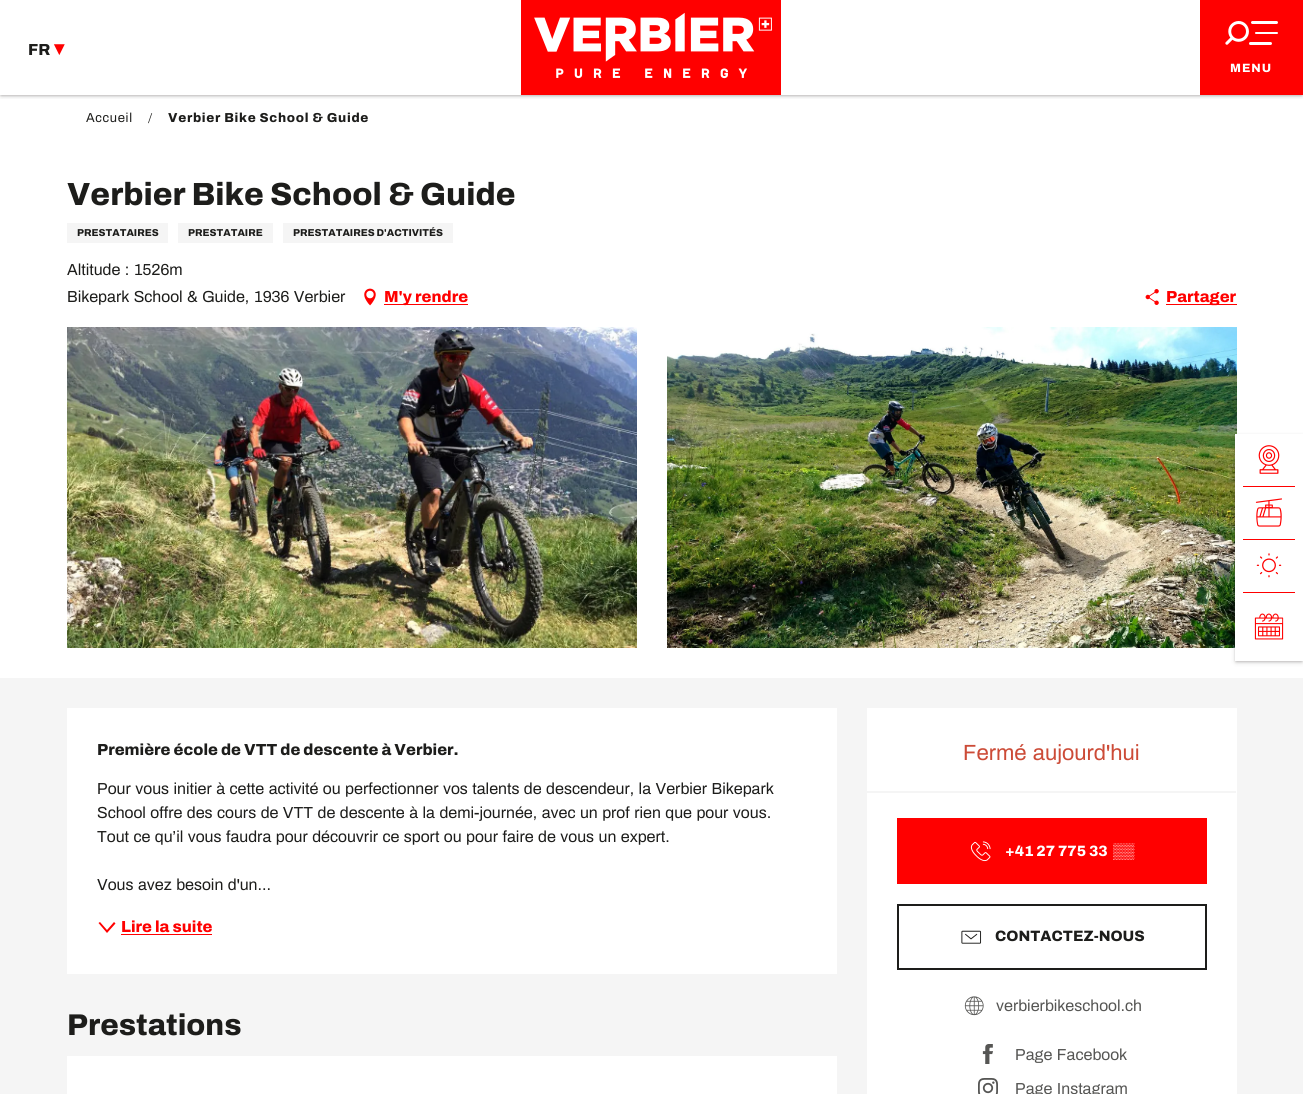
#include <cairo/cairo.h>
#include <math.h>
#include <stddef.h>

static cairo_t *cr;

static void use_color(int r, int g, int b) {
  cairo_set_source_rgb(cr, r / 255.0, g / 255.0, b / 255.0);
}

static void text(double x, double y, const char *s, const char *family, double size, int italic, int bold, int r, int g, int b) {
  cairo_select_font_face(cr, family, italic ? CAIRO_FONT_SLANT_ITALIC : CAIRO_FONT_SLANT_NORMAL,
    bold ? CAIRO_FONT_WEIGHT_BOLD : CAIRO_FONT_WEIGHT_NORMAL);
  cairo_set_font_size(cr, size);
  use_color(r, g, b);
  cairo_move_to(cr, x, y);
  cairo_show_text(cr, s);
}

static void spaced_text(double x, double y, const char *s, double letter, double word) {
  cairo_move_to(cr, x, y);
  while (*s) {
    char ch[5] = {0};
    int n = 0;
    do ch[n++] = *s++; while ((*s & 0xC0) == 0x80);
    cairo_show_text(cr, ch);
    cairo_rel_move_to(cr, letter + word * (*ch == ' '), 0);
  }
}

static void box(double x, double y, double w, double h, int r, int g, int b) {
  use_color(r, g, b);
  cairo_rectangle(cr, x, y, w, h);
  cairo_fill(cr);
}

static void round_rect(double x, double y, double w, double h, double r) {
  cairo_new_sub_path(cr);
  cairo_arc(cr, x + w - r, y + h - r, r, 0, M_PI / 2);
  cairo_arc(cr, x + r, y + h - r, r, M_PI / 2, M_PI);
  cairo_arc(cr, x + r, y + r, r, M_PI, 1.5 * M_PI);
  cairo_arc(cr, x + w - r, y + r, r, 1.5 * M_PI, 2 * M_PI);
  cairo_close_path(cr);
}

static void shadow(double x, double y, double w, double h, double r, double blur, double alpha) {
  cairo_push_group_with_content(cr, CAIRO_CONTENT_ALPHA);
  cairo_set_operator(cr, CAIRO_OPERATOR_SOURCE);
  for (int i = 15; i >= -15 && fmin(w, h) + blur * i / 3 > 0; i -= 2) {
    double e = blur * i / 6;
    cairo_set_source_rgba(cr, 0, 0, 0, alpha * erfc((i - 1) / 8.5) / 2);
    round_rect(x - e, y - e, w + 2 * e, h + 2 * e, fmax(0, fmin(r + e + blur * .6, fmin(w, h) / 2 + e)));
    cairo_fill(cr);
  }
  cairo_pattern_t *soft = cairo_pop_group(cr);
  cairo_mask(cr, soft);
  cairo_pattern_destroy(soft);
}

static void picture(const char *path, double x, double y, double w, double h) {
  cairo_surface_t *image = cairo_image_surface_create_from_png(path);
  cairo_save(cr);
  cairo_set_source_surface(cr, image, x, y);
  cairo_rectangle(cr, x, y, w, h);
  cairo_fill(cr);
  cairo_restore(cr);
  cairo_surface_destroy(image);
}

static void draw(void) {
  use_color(255, 255, 255);
  cairo_paint(cr);
  cairo_save(cr);
  cairo_rectangle(cr, 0, 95, 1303, 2);
  cairo_clip(cr);
  use_color(59, 56, 52);
  shadow(1, 2, 1301, 93, 0, 1.5, 0.3);
  cairo_restore(cr);
  cairo_save(cr);
  cairo_rectangle(cr, 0, 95, 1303, 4);
  cairo_clip(cr);
  use_color(59, 56, 52);
  shadow(1, 3, 1301, 93, 0, 2.5, 0.25);
  cairo_restore(cr);
  picture("img_01.png", 521, 0, 260, 95);
  box(1200, 0, 103, 95, 255, 0, 0);
  picture("img_02.png", 1225, 21, 53, 24);
  box(67, 223, 101, 20, 245, 245, 245);
  box(178, 223, 95, 20, 245, 245, 245);
  box(283, 223, 170, 20, 245, 245, 245);
  picture("img_03.png", 364, 288, 12, 18);
  box(384, 304, 84, 1, 255, 0, 0);
  picture("img_04.png", 1145, 289, 14, 16);
  box(1166, 304, 71, 1, 255, 0, 0);
  picture("img_05.png", 67, 327, 570, 321);
  picture("img_06.png", 667, 327, 570, 321);
  box(0, 678, 1303, 416, 245, 245, 245);
  box(67, 708, 770, 266, 255, 255, 255);
  use_color(255, 0, 0);
  cairo_new_path(cr);
  cairo_move_to(cr, 100, 922);
  cairo_line_to(cr, 98.5, 923);
  cairo_line_to(cr, 107, 933);
  cairo_line_to(cr, 115.5, 923.5);
  cairo_line_to(cr, 114, 922);
  cairo_line_to(cr, 107, 930);
  cairo_close_path(cr);
  cairo_fill(cr);
  box(121, 934, 91, 1, 255, 0, 0);
  box(67, 1056, 770, 38, 255, 255, 255);
  box(867, 708, 370, 386, 255, 255, 255);
  box(867, 791, 369, 2, 245, 245, 245);
  box(897, 818, 310, 66, 255, 0, 0);
  picture("img_07.png", 970, 841, 21, 21);
  cairo_rectangle(cr, 898, 905, 308, 64);
  use_color(29, 29, 27);
  cairo_stroke(cr);
  picture("img_08.png", 961, 930, 21, 14);
  picture("img_09.png", 964, 996, 20, 20);
  picture("img_10.png", 982, 1044, 11, 20);
  picture("img_11.png", 978, 1078, 20, 16);
  use_color(59, 56, 52);
  shadow(1236, 436, 66, 225, 0, 1.5, 0.3);
  shadow(1236, 437, 66, 225, 0, 2.5, 0.25);
  box(1235, 434, 68, 227, 255, 255, 255);
  box(1243, 486, 52, 1, 255, 0, 0);
  picture("img_12.png", 1258, 445, 22, 29);
  box(1243, 539, 52, 1, 255, 0, 0);
  picture("img_13.png", 1255, 498, 27, 29);
  box(1243, 592, 52, 1, 255, 0, 0);
  picture("img_14.png", 1256, 553, 26, 25);
  picture("img_15.png", 1254, 613, 30, 27);
  text(28, 55, "FR", "Archivo ExtraBold", 16, 0, 0, 29, 29, 27);
  text(54, 55, "▾", "DejaVu Sans", 20, 0, 1, 255, 0, 0);
  cairo_select_font_face(cr, "Archivo ExtraBold", CAIRO_FONT_SLANT_NORMAL, CAIRO_FONT_WEIGHT_NORMAL);
  cairo_set_font_size(cr, 12);
  use_color(255, 255, 255);
  spaced_text(1230, 72, "MENU", 1, 0);
  cairo_select_font_face(cr, "Archivo", CAIRO_FONT_SLANT_NORMAL, CAIRO_FONT_WEIGHT_NORMAL);
  cairo_set_font_size(cr, 13);
  use_color(29, 29, 27);
  spaced_text(86, 122, "Accueil", 0.7, 0);
  text(148, 123, "/", "Liberation Serif", 15, 0, 0, 29, 29, 27);
  cairo_select_font_face(cr, "Archivo ExtraBold", CAIRO_FONT_SLANT_NORMAL, CAIRO_FONT_WEIGHT_NORMAL);
  cairo_set_font_size(cr, 13);
  spaced_text(168, 122, "Verbier Bike School & Guide", 0.7, 0);
  text(67, 205, "Verbier Bike School & Guide", "Archivo ExtraBold", 32, 0, 0, 29, 29, 27);
  text(77, 236, "PRESTATAIRES", "Archivo ExtraBold", 10, 0, 0, 29, 29, 27);
  text(188, 236, "PRESTATAIRE", "Archivo ExtraBold", 10, 0, 0, 29, 29, 27);
  text(293, 236, "PRESTATAIRES D'ACTIVITÉS", "Archivo ExtraBold", 10, 0, 0, 29, 29, 27);
  text(67, 275, "Altitude : 1526m", "Archivo", 16, 0, 0, 29, 29, 27);
  text(67, 302, "Bikepark School & Guide, 1936 Verbier", "Archivo", 16, 0, 0, 29, 29, 27);
  text(384, 302, "M'y rendre", "Archivo ExtraBold", 16, 0, 0, 255, 0, 0);
  text(1166, 302, "Partager", "Archivo ExtraBold", 16, 0, 0, 255, 0, 0);
  text(97, 755, "Première école de VTT de descente à Verbier.", "Archivo ExtraBold", 16, 0, 0, 29, 29, 27);
  text(97, 794, "Pour vous initier à cette activité ou perfectionner vos talents de descendeur, la Verbier Bikepark", "Archivo", 16, 0, 0, 29, 29, 27);
  text(97, 818, "School offre des cours de VTT de descente à la demi-journée, avec un prof rien que pour vous.", "Archivo", 16, 0, 0, 29, 29, 27);
  text(97, 842, "Tout ce qu’il vous faudra pour découvrir ce sport ou pour faire de vous un expert.", "Archivo", 16, 0, 0, 29, 29, 27);
  text(97, 890, "Vous avez besoin d'un...", "Archivo", 16, 0, 0, 29, 29, 27);
  text(121, 932, "Lire la suite", "Archivo ExtraBold", 16, 0, 0, 255, 0, 0);
  text(67, 1035, "Prestations", "Archivo ExtraBold", 30, 0, 0, 29, 29, 27);
  text(963, 760, "Fermé aujourd'hui", "Archivo", 22, 0, 0, 204, 75, 55);
  text(1005, 856, "+41 27 775 33", "Archivo ExtraBold", 15, 0, 0, 255, 255, 255);
  text(1113, 856, "▒▒", "Liberation Sans", 15, 0, 1, 255, 255, 255);
  text(995, 941, "CONTACTEZ-NOUS", "Archivo ExtraBold", 15, 0, 0, 29, 29, 27);
  text(996, 1011, "verbierbikeschool.ch", "Archivo", 16, 0, 0, 86, 86, 84);
  text(1015, 1060, "Page Facebook", "Archivo", 16, 0, 0, 86, 86, 84);
  text(1015, 1094, "Page Instagram", "Archivo", 16, 0, 0, 86, 86, 84);
}

int main(void) {
  cairo_surface_t *surface = cairo_image_surface_create(CAIRO_FORMAT_RGB24, 1303, 1094);
  cr = cairo_create(surface);
  cairo_font_options_t *options = cairo_font_options_create();
  cairo_font_options_set_hint_metrics(options, CAIRO_HINT_METRICS_OFF);
  cairo_font_options_set_hint_style(options, CAIRO_HINT_STYLE_NONE);
  cairo_set_font_options(cr, options);
  cairo_set_miter_limit(cr, 4);
  draw();
  cairo_surface_write_to_png(surface, "out.png");
  cairo_font_options_destroy(options);
  cairo_destroy(cr);
  cairo_surface_destroy(surface);
  return 0;
}
